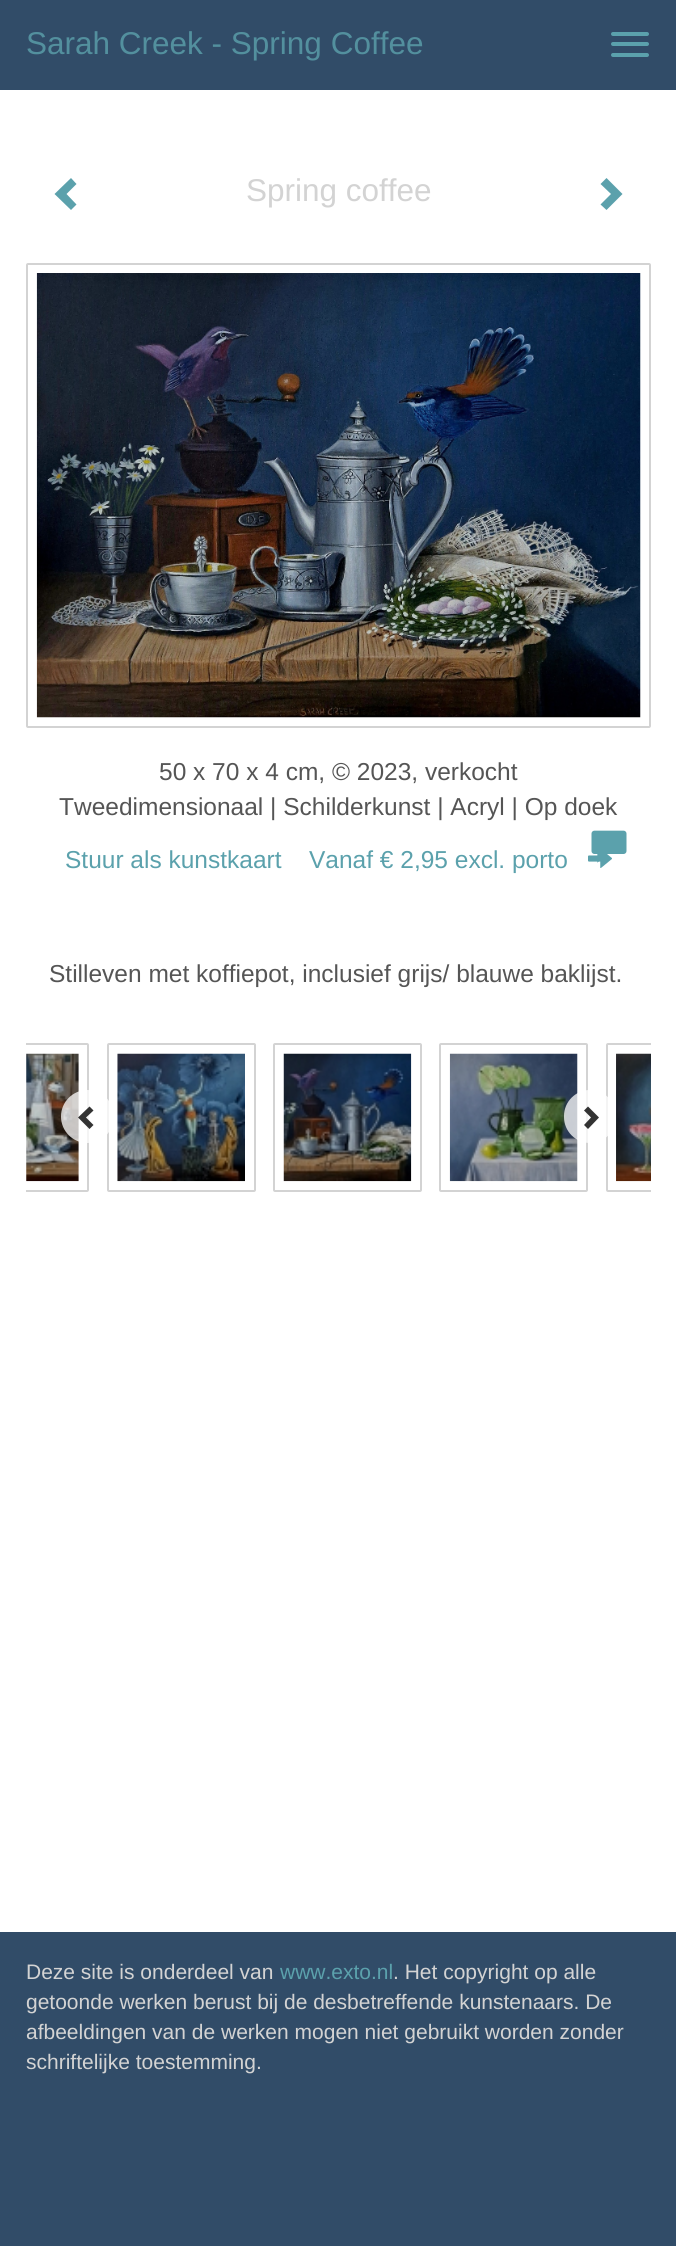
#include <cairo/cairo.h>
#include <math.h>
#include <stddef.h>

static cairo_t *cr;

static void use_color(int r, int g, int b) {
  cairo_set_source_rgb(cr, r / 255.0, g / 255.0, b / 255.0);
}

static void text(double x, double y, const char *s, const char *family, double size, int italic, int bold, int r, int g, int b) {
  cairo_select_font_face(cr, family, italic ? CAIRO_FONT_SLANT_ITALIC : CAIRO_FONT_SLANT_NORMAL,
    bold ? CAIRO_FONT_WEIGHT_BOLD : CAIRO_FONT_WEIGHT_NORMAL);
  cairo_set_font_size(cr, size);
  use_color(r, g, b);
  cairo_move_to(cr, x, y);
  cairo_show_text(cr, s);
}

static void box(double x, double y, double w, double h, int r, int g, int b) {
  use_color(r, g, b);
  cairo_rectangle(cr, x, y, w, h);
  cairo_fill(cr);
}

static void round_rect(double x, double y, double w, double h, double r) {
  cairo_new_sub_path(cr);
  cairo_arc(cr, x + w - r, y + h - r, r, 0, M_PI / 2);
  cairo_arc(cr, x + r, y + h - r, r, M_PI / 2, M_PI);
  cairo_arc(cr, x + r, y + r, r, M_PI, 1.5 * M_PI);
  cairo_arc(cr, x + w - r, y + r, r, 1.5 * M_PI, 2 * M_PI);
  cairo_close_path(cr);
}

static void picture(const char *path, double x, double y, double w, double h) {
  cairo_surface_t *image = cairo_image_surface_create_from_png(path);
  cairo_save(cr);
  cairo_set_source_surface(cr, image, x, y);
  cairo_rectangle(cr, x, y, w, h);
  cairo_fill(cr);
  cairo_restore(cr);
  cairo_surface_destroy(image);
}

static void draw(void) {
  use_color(49, 76, 104);
  cairo_paint(cr);
  use_color(91, 161, 172);
  round_rect(611, 32, 38, 4, 2);
  cairo_fill(cr);
  round_rect(611, 42, 38, 4, 2);
  cairo_fill(cr);
  round_rect(611, 53, 38, 4, 2);
  cairo_fill(cr);
  box(0, 90, 676, 1842, 255, 255, 255);
  use_color(91, 161, 172);
  cairo_new_path(cr);
  cairo_move_to(cr, 76.5, 184);
  cairo_line_to(cr, 66.5, 194);
  cairo_line_to(cr, 76.5, 204.5);
  cairo_line_to(cr, 71, 210);
  cairo_line_to(cr, 54.5, 194);
  cairo_line_to(cr, 71, 178);
  cairo_close_path(cr);
  cairo_fill(cr);
  cairo_new_path(cr);
  cairo_move_to(cr, 622.5, 194);
  cairo_line_to(cr, 606.5, 210);
  cairo_line_to(cr, 600.5, 204.5);
  cairo_line_to(cr, 611, 194);
  cairo_line_to(cr, 600.5, 184);
  cairo_line_to(cr, 606.5, 178);
  cairo_close_path(cr);
  cairo_fill(cr);
  round_rect(27, 264, 623, 463, 1);
  use_color(211, 211, 211);
  cairo_stroke(cr);
  picture("img_01.png", 36, 273, 605, 445);
  picture("img_03.png", 591, 830, 36, 33);
  picture("img_02.png", 588, 854, 24, 14);
  cairo_save(cr);
  cairo_rectangle(cr, 26, 1034, 625, 167);
  cairo_clip(cr);
  round_rect(-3, 1044, 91, 147, 1);
  cairo_stroke(cr);
  cairo_restore(cr);
  picture("img_04.png", 26, 1053, 53, 129);
  round_rect(108, 1044, 147, 147, 1);
  cairo_stroke(cr);
  picture("img_05.png", 117, 1053, 128, 129);
  round_rect(274, 1044, 147, 147, 1);
  cairo_stroke(cr);
  picture("img_06.png", 283, 1053, 129, 129);
  round_rect(440, 1044, 147, 147, 1);
  cairo_stroke(cr);
  picture("img_07.png", 449, 1053, 129, 129);
  cairo_save(cr);
  cairo_rectangle(cr, 26, 1034, 625, 167);
  cairo_clip(cr);
  round_rect(607, 1044, 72, 147, 1);
  cairo_stroke(cr);
  cairo_restore(cr);
  picture("img_08.png", 616, 1053, 35, 129);
  cairo_set_source_rgba(cr, 1, 1, 1, 0.75);
  cairo_arc(cr, 87.5, 1116.5, 26.5, 0, 2 * M_PI);
  cairo_fill(cr);
  use_color(51, 51, 51);
  cairo_new_path(cr);
  cairo_move_to(cr, 93.5, 1110.5);
  cairo_line_to(cr, 86, 1117.5);
  cairo_line_to(cr, 93.5, 1125);
  cairo_line_to(cr, 89.5, 1129);
  cairo_line_to(cr, 78, 1117.5);
  cairo_line_to(cr, 89.5, 1106.5);
  cairo_close_path(cr);
  cairo_fill(cr);
  cairo_set_source_rgba(cr, 1, 1, 1, 0.75);
  round_rect(564, 1090, 52, 53, 26);
  cairo_fill(cr);
  use_color(51, 51, 51);
  cairo_new_path(cr);
  cairo_move_to(cr, 599, 1117.5);
  cairo_line_to(cr, 588, 1129);
  cairo_line_to(cr, 584, 1125);
  cairo_line_to(cr, 591, 1117.5);
  cairo_line_to(cr, 584, 1110.5);
  cairo_line_to(cr, 588, 1106.5);
  cairo_close_path(cr);
  cairo_fill(cr);
  text(26, 54, "Sarah Creek - Spring Coffee", "Liberation Sans", 31.5, 0, 0, 83, 144, 158);
  text(246, 201, "Spring coffee", "Liberation Sans", 31.5, 0, 0, 211, 211, 211);
  text(159, 780, "50 x 70 x 4 cm, © 2023, verkocht", "Liberation Sans", 24.5, 0, 0, 85, 85, 85);
  text(59, 815, "Tweedimensionaal | Schilderkunst | Acryl | Op doek", "Liberation Sans", 24.5, 0, 0, 85, 85, 85);
  text(65, 868, "Stuur als kunstkaart", "Liberation Sans", 24.5, 0, 0, 91, 161, 172);
  text(309, 868, "Vanaf € 2,95 excl. porto", "Liberation Sans", 24.5, 0, 0, 91, 161, 172);
  text(49, 982, "Stilleven met koffiepot, inclusief grijs/ blauwe baklijst.", "Liberation Sans", 24.5, 0, 0, 85, 85, 85);
  text(26, 1979, "Deze site is onderdeel van", "Liberation Sans", 21, 0, 0, 211, 211, 211);
  text(280, 1979, "www.exto.nl", "Liberation Sans", 21, 0, 0, 91, 161, 172);
  text(393, 1979, ". Het copyright op alle", "Liberation Sans", 21, 0, 0, 211, 211, 211);
  text(26, 2009, "getoonde werken berust bij de desbetreffende kunstenaars. De", "Liberation Sans", 21, 0, 0, 211, 211, 211);
  text(26, 2039, "afbeeldingen van de werken mogen niet gebruikt worden zonder", "Liberation Sans", 21, 0, 0, 211, 211, 211);
  text(26, 2069, "schriftelijke toestemming.", "Liberation Sans", 21, 0, 0, 211, 211, 211);
}

int main(void) {
  cairo_surface_t *surface = cairo_image_surface_create(CAIRO_FORMAT_RGB24, 676, 2246);
  cr = cairo_create(surface);
  cairo_font_options_t *options = cairo_font_options_create();
  cairo_font_options_set_hint_metrics(options, CAIRO_HINT_METRICS_OFF);
  cairo_font_options_set_hint_style(options, CAIRO_HINT_STYLE_NONE);
  cairo_set_font_options(cr, options);
  cairo_set_miter_limit(cr, 4);
  draw();
  cairo_surface_write_to_png(surface, "out.png");
  cairo_font_options_destroy(options);
  cairo_destroy(cr);
  cairo_surface_destroy(surface);
  return 0;
}
